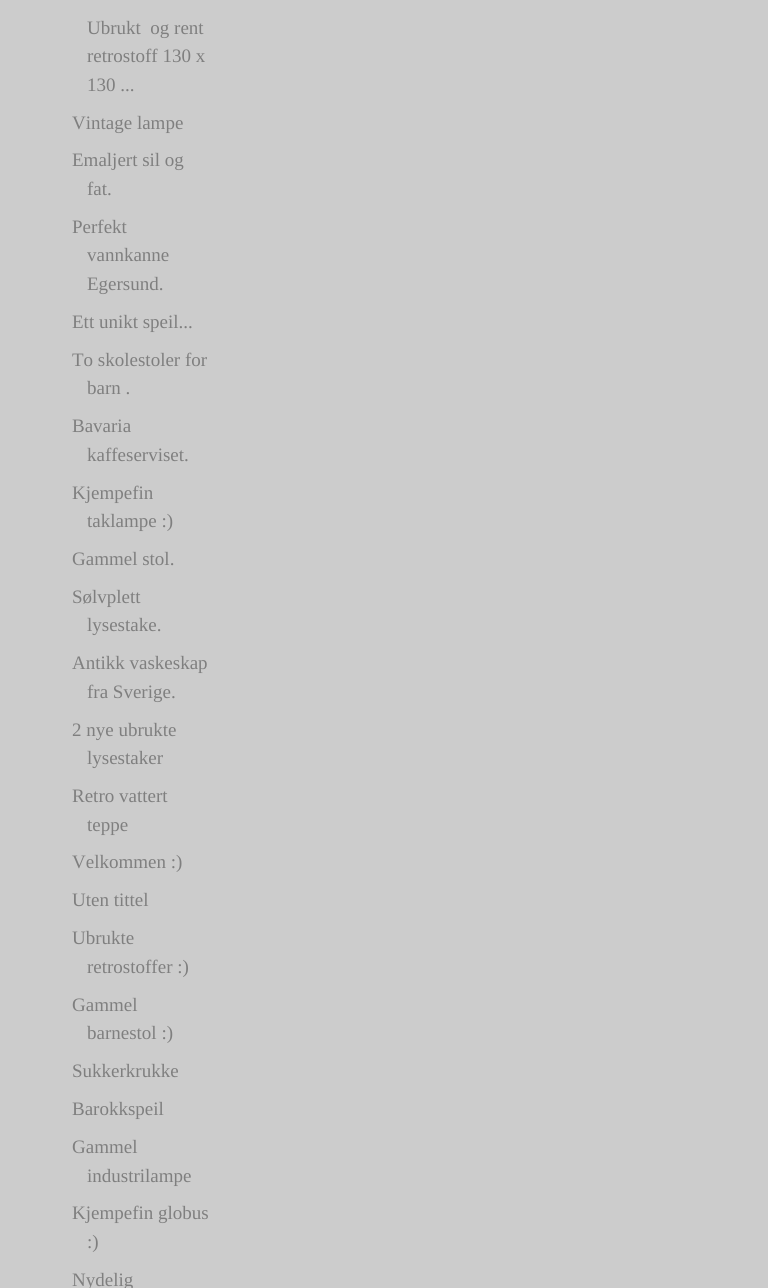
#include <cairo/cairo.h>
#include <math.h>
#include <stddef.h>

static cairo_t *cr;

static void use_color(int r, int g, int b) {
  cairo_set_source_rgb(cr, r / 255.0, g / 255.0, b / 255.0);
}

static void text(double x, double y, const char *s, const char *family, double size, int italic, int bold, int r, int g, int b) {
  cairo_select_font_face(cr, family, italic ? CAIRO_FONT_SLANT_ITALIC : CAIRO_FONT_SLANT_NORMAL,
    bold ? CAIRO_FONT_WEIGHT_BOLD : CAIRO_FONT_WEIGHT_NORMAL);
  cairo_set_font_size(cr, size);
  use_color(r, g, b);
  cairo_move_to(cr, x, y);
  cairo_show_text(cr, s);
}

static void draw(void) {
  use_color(204, 204, 204);
  cairo_paint(cr);
  text(87, 34, "Ubrukt  og rent", "Liberation Serif", 19, 0, 0, 127, 127, 127);
  text(87, 62, "retrostoff 130 x", "Liberation Serif", 19, 0, 0, 127, 127, 127);
  text(87, 91, "130 ...", "Liberation Serif", 19, 0, 0, 127, 127, 127);
  text(72, 129, "Vintage lampe", "Liberation Serif", 19, 0, 0, 127, 127, 127);
  text(72, 166, "Emaljert sil og", "Liberation Serif", 19, 0, 0, 127, 127, 127);
  text(87, 195, "fat.", "Liberation Serif", 19, 0, 0, 127, 127, 127);
  text(72, 233, "Perfekt", "Liberation Serif", 19, 0, 0, 127, 127, 127);
  text(87, 261, "vannkanne", "Liberation Serif", 19, 0, 0, 127, 127, 127);
  text(87, 290, "Egersund.", "Liberation Serif", 19, 0, 0, 127, 127, 127);
  text(72, 328, "Ett unikt speil...", "Liberation Serif", 19, 0, 0, 127, 127, 127);
  text(72, 366, "To skolestoler for", "Liberation Serif", 19, 0, 0, 127, 127, 127);
  text(87, 394, "barn .", "Liberation Serif", 19, 0, 0, 127, 127, 127);
  text(72, 432, "Bavaria", "Liberation Serif", 19, 0, 0, 127, 127, 127);
  text(87, 461, "kaffeserviset.", "Liberation Serif", 19, 0, 0, 127, 127, 127);
  text(72, 499, "Kjempefin", "Liberation Serif", 19, 0, 0, 127, 127, 127);
  text(87, 527, "taklampe :)", "Liberation Serif", 19, 0, 0, 127, 127, 127);
  text(72, 565, "Gammel stol.", "Liberation Serif", 19, 0, 0, 127, 127, 127);
  text(72, 603, "Sølvplett", "Liberation Serif", 19, 0, 0, 127, 127, 127);
  text(87, 631, "lysestake.", "Liberation Serif", 19, 0, 0, 127, 127, 127);
  text(72, 669, "Antikk vaskeskap", "Liberation Serif", 19, 0, 0, 127, 127, 127);
  text(87, 698, "fra Sverige.", "Liberation Serif", 19, 0, 0, 127, 127, 127);
  text(72, 736, "2 nye ubrukte", "Liberation Serif", 19, 0, 0, 127, 127, 127);
  text(87, 764, "lysestaker", "Liberation Serif", 19, 0, 0, 127, 127, 127);
  text(72, 802, "Retro vattert", "Liberation Serif", 19, 0, 0, 127, 127, 127);
  text(87, 831, "teppe", "Liberation Serif", 19, 0, 0, 127, 127, 127);
  text(72, 868, "Velkommen :)", "Liberation Serif", 19, 0, 0, 127, 127, 127);
  text(72, 906, "Uten tittel", "Liberation Serif", 19, 0, 0, 127, 127, 127);
  text(72, 944, "Ubrukte", "Liberation Serif", 19, 0, 0, 127, 127, 127);
  text(87, 973, "retrostoffer :)", "Liberation Serif", 19, 0, 0, 127, 127, 127);
  text(72, 1011, "Gammel", "Liberation Serif", 19, 0, 0, 127, 127, 127);
  text(87, 1039, "barnestol :)", "Liberation Serif", 19, 0, 0, 127, 127, 127);
  text(72, 1077, "Sukkerkrukke", "Liberation Serif", 19, 0, 0, 127, 127, 127);
  text(72, 1115, "Barokkspeil", "Liberation Serif", 19, 0, 0, 127, 127, 127);
  text(72, 1153, "Gammel", "Liberation Serif", 19, 0, 0, 127, 127, 127);
  text(87, 1182, "industrilampe", "Liberation Serif", 19, 0, 0, 127, 127, 127);
  text(72, 1219, "Kjempefin globus", "Liberation Serif", 19, 0, 0, 127, 127, 127);
  text(87, 1248, ":)", "Liberation Serif", 19, 0, 0, 127, 127, 127);
  text(72, 1286, "Nydelig", "Liberation Serif", 19, 0, 0, 127, 127, 127);
}

int main(void) {
  cairo_surface_t *surface = cairo_image_surface_create(CAIRO_FORMAT_RGB24, 768, 1288);
  cr = cairo_create(surface);
  cairo_font_options_t *options = cairo_font_options_create();
  cairo_font_options_set_hint_metrics(options, CAIRO_HINT_METRICS_OFF);
  cairo_font_options_set_hint_style(options, CAIRO_HINT_STYLE_NONE);
  cairo_set_font_options(cr, options);
  cairo_set_miter_limit(cr, 4);
  draw();
  cairo_surface_write_to_png(surface, "out.png");
  cairo_font_options_destroy(options);
  cairo_destroy(cr);
  cairo_surface_destroy(surface);
  return 0;
}
